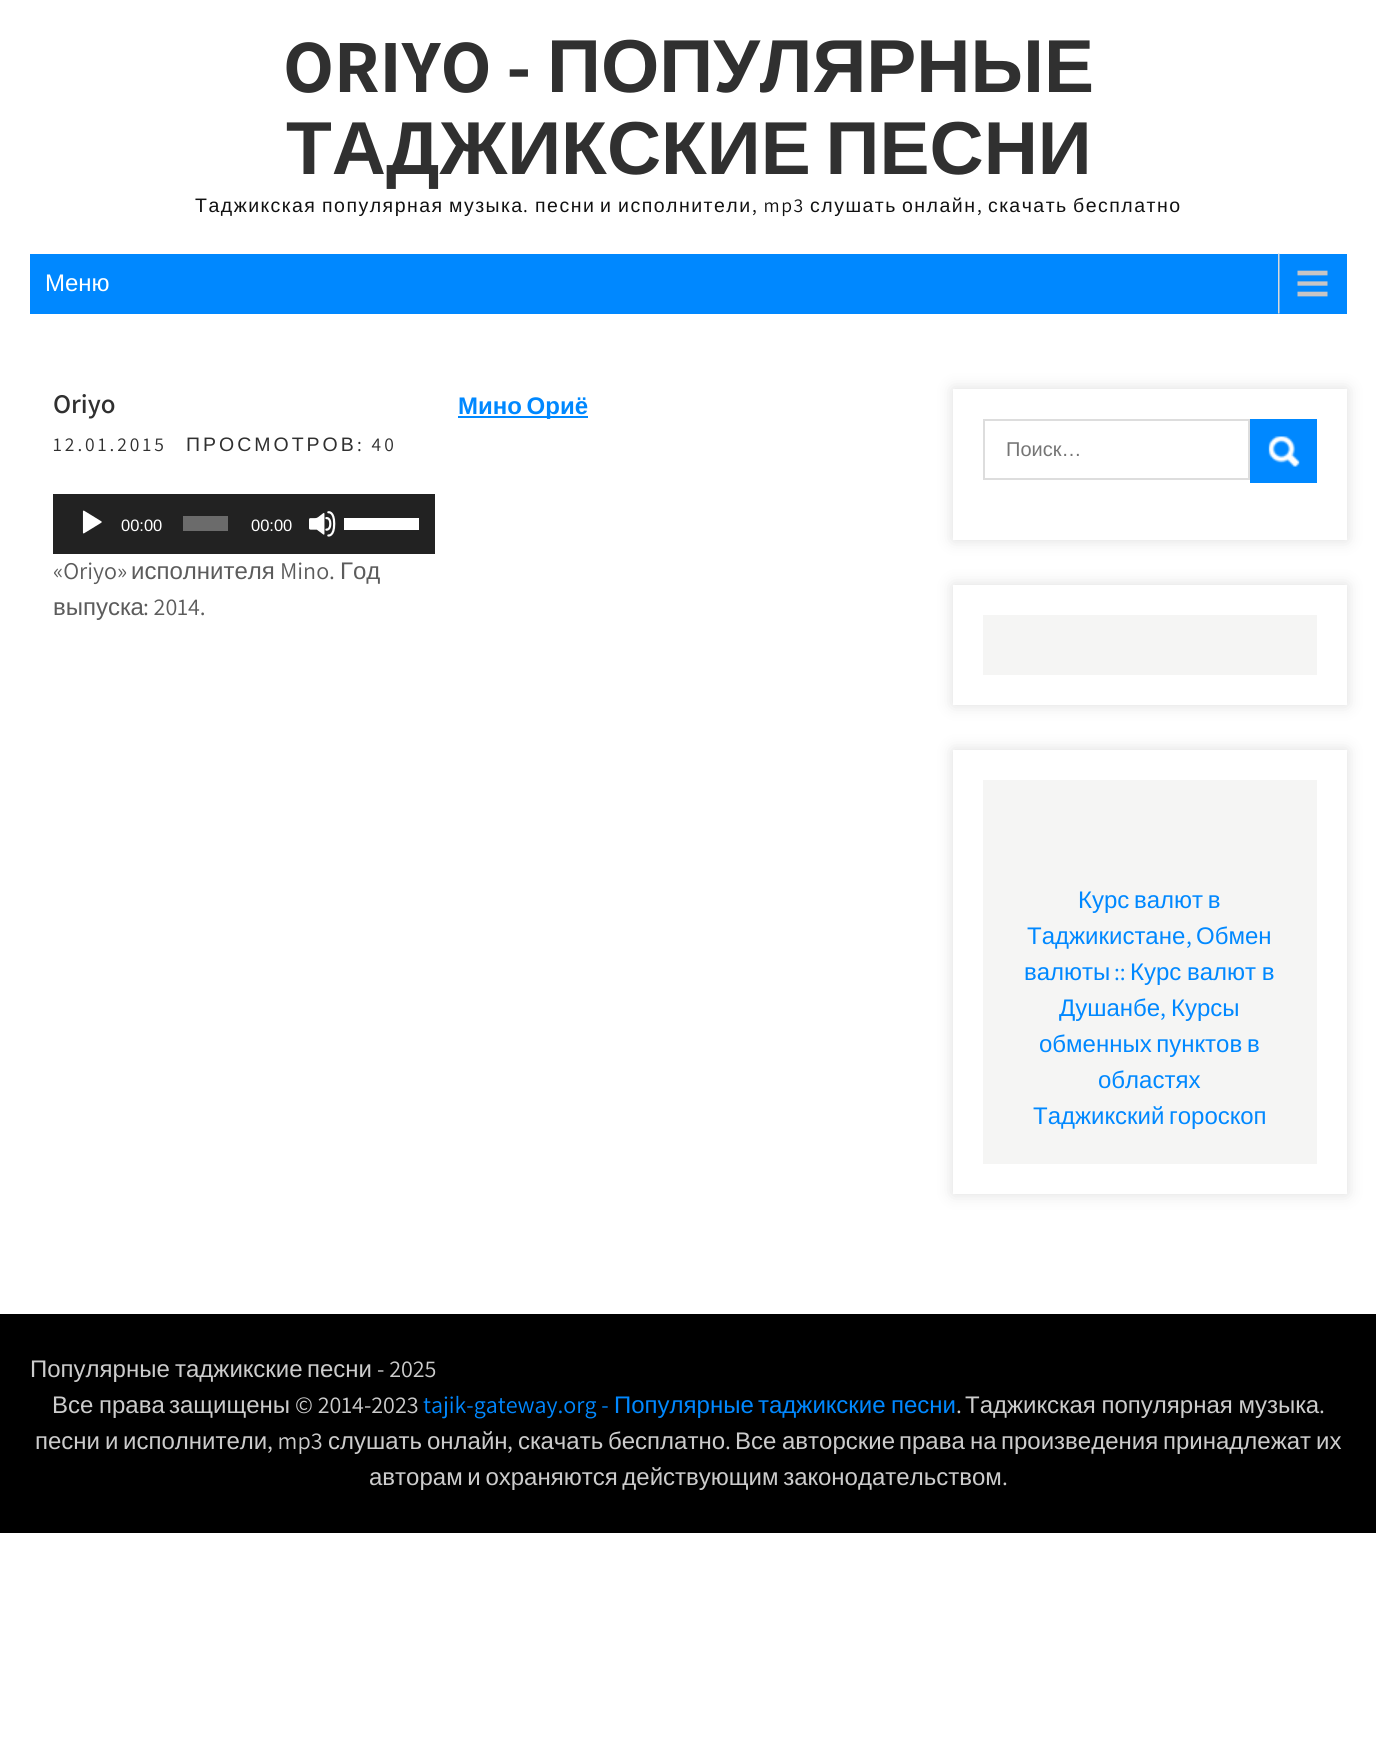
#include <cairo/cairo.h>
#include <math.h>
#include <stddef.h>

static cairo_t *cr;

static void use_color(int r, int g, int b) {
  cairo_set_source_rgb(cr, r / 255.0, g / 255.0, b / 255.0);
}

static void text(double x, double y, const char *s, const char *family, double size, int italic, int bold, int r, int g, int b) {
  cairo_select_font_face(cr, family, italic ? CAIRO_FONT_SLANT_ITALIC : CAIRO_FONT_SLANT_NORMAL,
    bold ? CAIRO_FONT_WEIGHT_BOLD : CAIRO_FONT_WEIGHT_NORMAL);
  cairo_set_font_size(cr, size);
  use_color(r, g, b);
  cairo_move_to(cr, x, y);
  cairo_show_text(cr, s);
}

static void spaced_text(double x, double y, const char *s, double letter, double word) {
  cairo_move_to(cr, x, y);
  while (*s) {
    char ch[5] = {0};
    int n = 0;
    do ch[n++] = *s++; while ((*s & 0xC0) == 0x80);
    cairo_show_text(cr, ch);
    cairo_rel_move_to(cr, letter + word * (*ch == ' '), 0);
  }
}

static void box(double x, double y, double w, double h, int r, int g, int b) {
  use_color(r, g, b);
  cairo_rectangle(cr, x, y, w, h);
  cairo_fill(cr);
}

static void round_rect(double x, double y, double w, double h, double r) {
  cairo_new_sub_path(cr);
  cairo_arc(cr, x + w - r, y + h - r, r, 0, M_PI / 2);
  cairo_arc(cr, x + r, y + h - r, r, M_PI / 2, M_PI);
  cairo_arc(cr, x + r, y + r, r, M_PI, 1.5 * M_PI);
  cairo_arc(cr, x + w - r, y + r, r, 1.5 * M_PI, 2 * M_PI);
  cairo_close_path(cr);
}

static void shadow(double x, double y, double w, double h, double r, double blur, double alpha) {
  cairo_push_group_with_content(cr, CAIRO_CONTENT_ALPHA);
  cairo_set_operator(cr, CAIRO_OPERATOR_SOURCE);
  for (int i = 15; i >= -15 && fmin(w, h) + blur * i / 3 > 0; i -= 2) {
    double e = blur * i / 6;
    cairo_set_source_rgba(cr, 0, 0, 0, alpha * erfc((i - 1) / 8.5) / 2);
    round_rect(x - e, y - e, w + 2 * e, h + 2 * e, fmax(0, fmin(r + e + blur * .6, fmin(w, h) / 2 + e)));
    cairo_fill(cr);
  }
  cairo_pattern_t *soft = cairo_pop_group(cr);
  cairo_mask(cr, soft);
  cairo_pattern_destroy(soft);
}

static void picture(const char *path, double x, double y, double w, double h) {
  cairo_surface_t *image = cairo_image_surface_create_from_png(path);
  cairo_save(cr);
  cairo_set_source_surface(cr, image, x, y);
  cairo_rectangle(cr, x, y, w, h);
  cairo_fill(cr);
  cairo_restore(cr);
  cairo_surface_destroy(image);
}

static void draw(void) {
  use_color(255, 255, 255);
  cairo_paint(cr);
  box(30, 254, 1317, 60, 0, 136, 255);
  picture("img_01.png", 1278, 253, 50, 61);
  box(53, 494, 382, 60, 34, 34, 34);
  picture("img_02.png", 82, 510, 20, 24);
  box(183, 516, 45, 15, 107, 107, 107);
  picture("img_03.png", 309, 511, 27, 26);
  box(344, 518, 75, 12, 255, 255, 255);
  box(458, 416, 130, 2, 0, 136, 255);
  cairo_save(cr);
  cairo_set_fill_rule(cr, CAIRO_FILL_RULE_EVEN_ODD);
  cairo_new_path(cr);
  cairo_move_to(cr, 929, 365);
  cairo_line_to(cr, 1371, 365);
  cairo_line_to(cr, 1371, 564);
  cairo_line_to(cr, 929, 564);
  cairo_close_path(cr);
  cairo_move_to(cr, 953, 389);
  cairo_line_to(cr, 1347, 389);
  cairo_line_to(cr, 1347, 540);
  cairo_line_to(cr, 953, 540);
  cairo_close_path(cr);
  cairo_clip(cr);
  use_color(221, 221, 221);
  shadow(953, 389, 394, 151, 0, 7.5, 1);
  cairo_restore(cr);
  cairo_rectangle(cr, 984, 420, 265, 59);
  use_color(221, 221, 221);
  cairo_stroke(cr);
  box(1250, 419, 67, 64, 0, 136, 255);
  picture("img_04.png", 1268, 436, 32, 31);
  cairo_save(cr);
  cairo_set_fill_rule(cr, CAIRO_FILL_RULE_EVEN_ODD);
  cairo_new_path(cr);
  cairo_move_to(cr, 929, 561);
  cairo_line_to(cr, 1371, 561);
  cairo_line_to(cr, 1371, 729);
  cairo_line_to(cr, 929, 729);
  cairo_close_path(cr);
  cairo_move_to(cr, 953, 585);
  cairo_line_to(cr, 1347, 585);
  cairo_line_to(cr, 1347, 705);
  cairo_line_to(cr, 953, 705);
  cairo_close_path(cr);
  cairo_clip(cr);
  use_color(221, 221, 221);
  shadow(953, 585, 394, 120, 0, 7.5, 1);
  cairo_restore(cr);
  box(983, 615, 334, 60, 245, 245, 244);
  cairo_save(cr);
  cairo_set_fill_rule(cr, CAIRO_FILL_RULE_EVEN_ODD);
  cairo_new_path(cr);
  cairo_move_to(cr, 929, 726);
  cairo_line_to(cr, 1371, 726);
  cairo_line_to(cr, 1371, 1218);
  cairo_line_to(cr, 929, 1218);
  cairo_close_path(cr);
  cairo_move_to(cr, 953, 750);
  cairo_line_to(cr, 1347, 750);
  cairo_line_to(cr, 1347, 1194);
  cairo_line_to(cr, 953, 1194);
  cairo_close_path(cr);
  cairo_clip(cr);
  use_color(221, 221, 221);
  shadow(953, 750, 394, 444, 0, 7.5, 1);
  cairo_restore(cr);
  box(983, 780, 334, 384, 245, 245, 244);
  box(0, 1314, 1376, 219, 0, 0, 0);
  text(283, 92, "ORIYO -", "Assistant", 75, 0, 1, 48, 48, 48);
  text(547, 92, "ПОПУЛЯРНЫЕ", "Liberation Sans", 75, 0, 1, 48, 48, 48);
  spaced_text(286, 174, "ТАДЖИКСКИЕ ПЕСНИ", 0, -6);
  cairo_select_font_face(cr, "Liberation Sans", CAIRO_FONT_SLANT_NORMAL, CAIRO_FONT_WEIGHT_NORMAL);
  cairo_set_font_size(cr, 19.5);
  use_color(17, 17, 17);
  spaced_text(195, 212, "Таджикская", 1.5, 0);
  spaced_text(322, 212, "популярная", 1.5, 0);
  spaced_text(449, 212, "музыка", 1.5, 0);
  cairo_select_font_face(cr, "Assistant", CAIRO_FONT_SLANT_NORMAL, CAIRO_FONT_WEIGHT_NORMAL);
  spaced_text(523, 212, ".", 1.5, 0);
  cairo_select_font_face(cr, "Liberation Sans", CAIRO_FONT_SLANT_NORMAL, CAIRO_FONT_WEIGHT_NORMAL);
  spaced_text(535, 212, "песни", 1.5, 0);
  spaced_text(600, 212, "и", 1.5, 0);
  spaced_text(618, 212, "исполнители", 1.5, 0);
  cairo_select_font_face(cr, "Assistant", CAIRO_FONT_SLANT_NORMAL, CAIRO_FONT_WEIGHT_NORMAL);
  spaced_text(752, 212, ", mp3", 1.5, 0);
  cairo_select_font_face(cr, "Liberation Sans", CAIRO_FONT_SLANT_NORMAL, CAIRO_FONT_WEIGHT_NORMAL);
  spaced_text(810, 212, "слушать", 1.5, 0);
  spaced_text(902, 212, "онлайн", 1.5, 0);
  cairo_select_font_face(cr, "Assistant", CAIRO_FONT_SLANT_NORMAL, CAIRO_FONT_WEIGHT_NORMAL);
  spaced_text(977, 212, ",", 1.5, 0);
  cairo_select_font_face(cr, "Liberation Sans", CAIRO_FONT_SLANT_NORMAL, CAIRO_FONT_WEIGHT_NORMAL);
  spaced_text(988, 212, "скачать", 1.5, 0);
  spaced_text(1073, 212, "бесплатно", 1.5, 0);
  text(45, 291, "Меню", "Liberation Sans", 24, 0, 0, 255, 255, 255);
  text(53, 413, "Oriyo", "Assistant SemiBold", 27, 0, 0, 48, 48, 48);
  cairo_select_font_face(cr, "Assistant", CAIRO_FONT_SLANT_NORMAL, CAIRO_FONT_WEIGHT_NORMAL);
  cairo_set_font_size(cr, 19.5);
  spaced_text(53, 451, "12.01.2015", 3, 0);
  cairo_select_font_face(cr, "Liberation Sans", CAIRO_FONT_SLANT_NORMAL, CAIRO_FONT_WEIGHT_NORMAL);
  spaced_text(186, 451, "ПРОСМОТРОВ", 3, 0);
  cairo_select_font_face(cr, "Assistant", CAIRO_FONT_SLANT_NORMAL, CAIRO_FONT_WEIGHT_NORMAL);
  spaced_text(357, 451, ": 40", 3, 0);
  text(121, 531, "00:00", "Liberation Sans", 16.5, 0, 0, 255, 255, 255);
  text(251, 531, "00:00", "Liberation Sans", 16.5, 0, 0, 255, 255, 255);
  text(53, 579, "«Oriyo»", "Assistant", 24, 0, 0, 92, 92, 92);
  text(131, 579, "исполнителя", "Liberation Sans", 24, 0, 0, 92, 92, 92);
  text(280, 579, "Mino.", "Assistant", 24, 0, 0, 92, 92, 92);
  text(340, 579, "Год", "Liberation Sans", 24, 0, 0, 92, 92, 92);
  text(53, 615, "выпуска", "Liberation Sans", 24, 0, 0, 92, 92, 92);
  text(143, 615, ": 2014.", "Assistant", 24, 0, 0, 92, 92, 92);
  cairo_select_font_face(cr, "Liberation Sans", CAIRO_FONT_SLANT_NORMAL, CAIRO_FONT_WEIGHT_BOLD);
  use_color(0, 136, 255);
  spaced_text(458, 414, "Мино Ориё", 0, -2);
  text(1006, 456, "Поиск…", "Liberation Sans", 20, 0, 0, 117, 117, 117);
  cairo_set_font_size(cr, 24);
  use_color(0, 136, 255);
  spaced_text(1078, 908, "Курс валют в", 0, -2);
  text(1027, 944, "Таджикистане", "Liberation Sans", 24, 0, 0, 0, 136, 255);
  text(1186, 944, ",", "Assistant", 24, 0, 0, 0, 136, 255);
  text(1196, 944, "Обмен", "Liberation Sans", 24, 0, 0, 0, 136, 255);
  text(1024, 980, "валюты", "Liberation Sans", 24, 0, 0, 0, 136, 255);
  text(1114, 980, "::", "Assistant", 24, 0, 0, 0, 136, 255);
  cairo_select_font_face(cr, "Liberation Sans", CAIRO_FONT_SLANT_NORMAL, CAIRO_FONT_WEIGHT_NORMAL);
  spaced_text(1130, 980, "Курс валют в", 0, -1);
  text(1059, 1016, "Душанбе", "Liberation Sans", 24, 0, 0, 0, 136, 255);
  text(1160, 1016, ",", "Assistant", 24, 0, 0, 0, 136, 255);
  text(1171, 1016, "Курсы", "Liberation Sans", 24, 0, 0, 0, 136, 255);
  spaced_text(1039, 1052, "обменных пунктов в", 0, -2);
  text(1098, 1088, "областях", "Liberation Sans", 24, 0, 0, 0, 136, 255);
  spaced_text(1033, 1124, "Таджикский гороскоп", 0, -2);
  text(30, 1377, "Популярные", "Liberation Sans", 24, 0, 0, 204, 204, 204);
  text(175, 1377, "таджикские", "Liberation Sans", 24, 0, 0, 204, 204, 204);
  text(307, 1377, "песни", "Liberation Sans", 24, 0, 0, 204, 204, 204);
  text(377, 1377, "- 2025", "Assistant", 24, 0, 0, 204, 204, 204);
  text(52, 1413, "Все", "Liberation Sans", 24, 0, 0, 204, 204, 204);
  text(99, 1413, "права", "Liberation Sans", 24, 0, 0, 204, 204, 204);
  text(169, 1413, "защищены", "Liberation Sans", 24, 0, 0, 204, 204, 204);
  text(295, 1413, "© 2014-2023", "Assistant", 24, 0, 0, 204, 204, 204);
  text(423, 1413, "tajik-gateway.org -", "Assistant", 24, 0, 0, 0, 136, 255);
  text(614, 1413, "Популярные", "Liberation Sans", 24, 0, 0, 0, 136, 255);
  text(758, 1413, "таджикские", "Liberation Sans", 24, 0, 0, 0, 136, 255);
  text(891, 1413, "песни", "Liberation Sans", 24, 0, 0, 0, 136, 255);
  text(956, 1413, ".", "Assistant", 24, 0, 0, 204, 204, 204);
  cairo_select_font_face(cr, "Liberation Sans", CAIRO_FONT_SLANT_NORMAL, CAIRO_FONT_WEIGHT_NORMAL);
  spaced_text(965, 1413, "Таджикская популярная музыка", 0, -1);
  text(1319, 1413, ".", "Assistant", 24, 0, 0, 204, 204, 204);
  text(35, 1449, "песни", "Liberation Sans", 24, 0, 0, 204, 204, 204);
  text(105, 1449, "и", "Liberation Sans", 24, 0, 0, 204, 204, 204);
  text(123, 1449, "исполнители", "Liberation Sans", 24, 0, 0, 204, 204, 204);
  text(267, 1449, ", mp3", "Assistant", 24, 0, 0, 204, 204, 204);
  text(328, 1449, "слушать", "Liberation Sans", 24, 0, 0, 204, 204, 204);
  text(427, 1449, "онлайн", "Liberation Sans", 24, 0, 0, 204, 204, 204);
  text(507, 1449, ",", "Assistant", 24, 0, 0, 204, 204, 204);
  text(518, 1449, "скачать", "Liberation Sans", 24, 0, 0, 204, 204, 204);
  text(608, 1449, "бесплатно", "Liberation Sans", 24, 0, 0, 204, 204, 204);
  text(725, 1449, ".", "Assistant", 24, 0, 0, 204, 204, 204);
  text(735, 1449, "Все", "Liberation Sans", 24, 0, 0, 204, 204, 204);
  text(782, 1449, "авторские", "Liberation Sans", 24, 0, 0, 204, 204, 204);
  text(899, 1449, "права", "Liberation Sans", 24, 0, 0, 204, 204, 204);
  text(970, 1449, "на", "Liberation Sans", 24, 0, 0, 204, 204, 204);
  text(1001, 1449, "произведения", "Liberation Sans", 24, 0, 0, 204, 204, 204);
  text(1163, 1449, "принадлежат", "Liberation Sans", 24, 0, 0, 204, 204, 204);
  text(1316, 1449, "их", "Liberation Sans", 24, 0, 0, 204, 204, 204);
  spaced_text(369, 1485, "авторам и охраняются действующим законодательством", 0, -2);
  text(1002, 1485, ".", "Assistant", 24, 0, 0, 204, 204, 204);
}

int main(void) {
  cairo_surface_t *surface = cairo_image_surface_create(CAIRO_FORMAT_RGB24, 1376, 1738);
  cr = cairo_create(surface);
  cairo_font_options_t *options = cairo_font_options_create();
  cairo_font_options_set_hint_metrics(options, CAIRO_HINT_METRICS_OFF);
  cairo_font_options_set_hint_style(options, CAIRO_HINT_STYLE_NONE);
  cairo_set_font_options(cr, options);
  cairo_set_miter_limit(cr, 4);
  draw();
  cairo_surface_write_to_png(surface, "out.png");
  cairo_font_options_destroy(options);
  cairo_destroy(cr);
  cairo_surface_destroy(surface);
  return 0;
}
